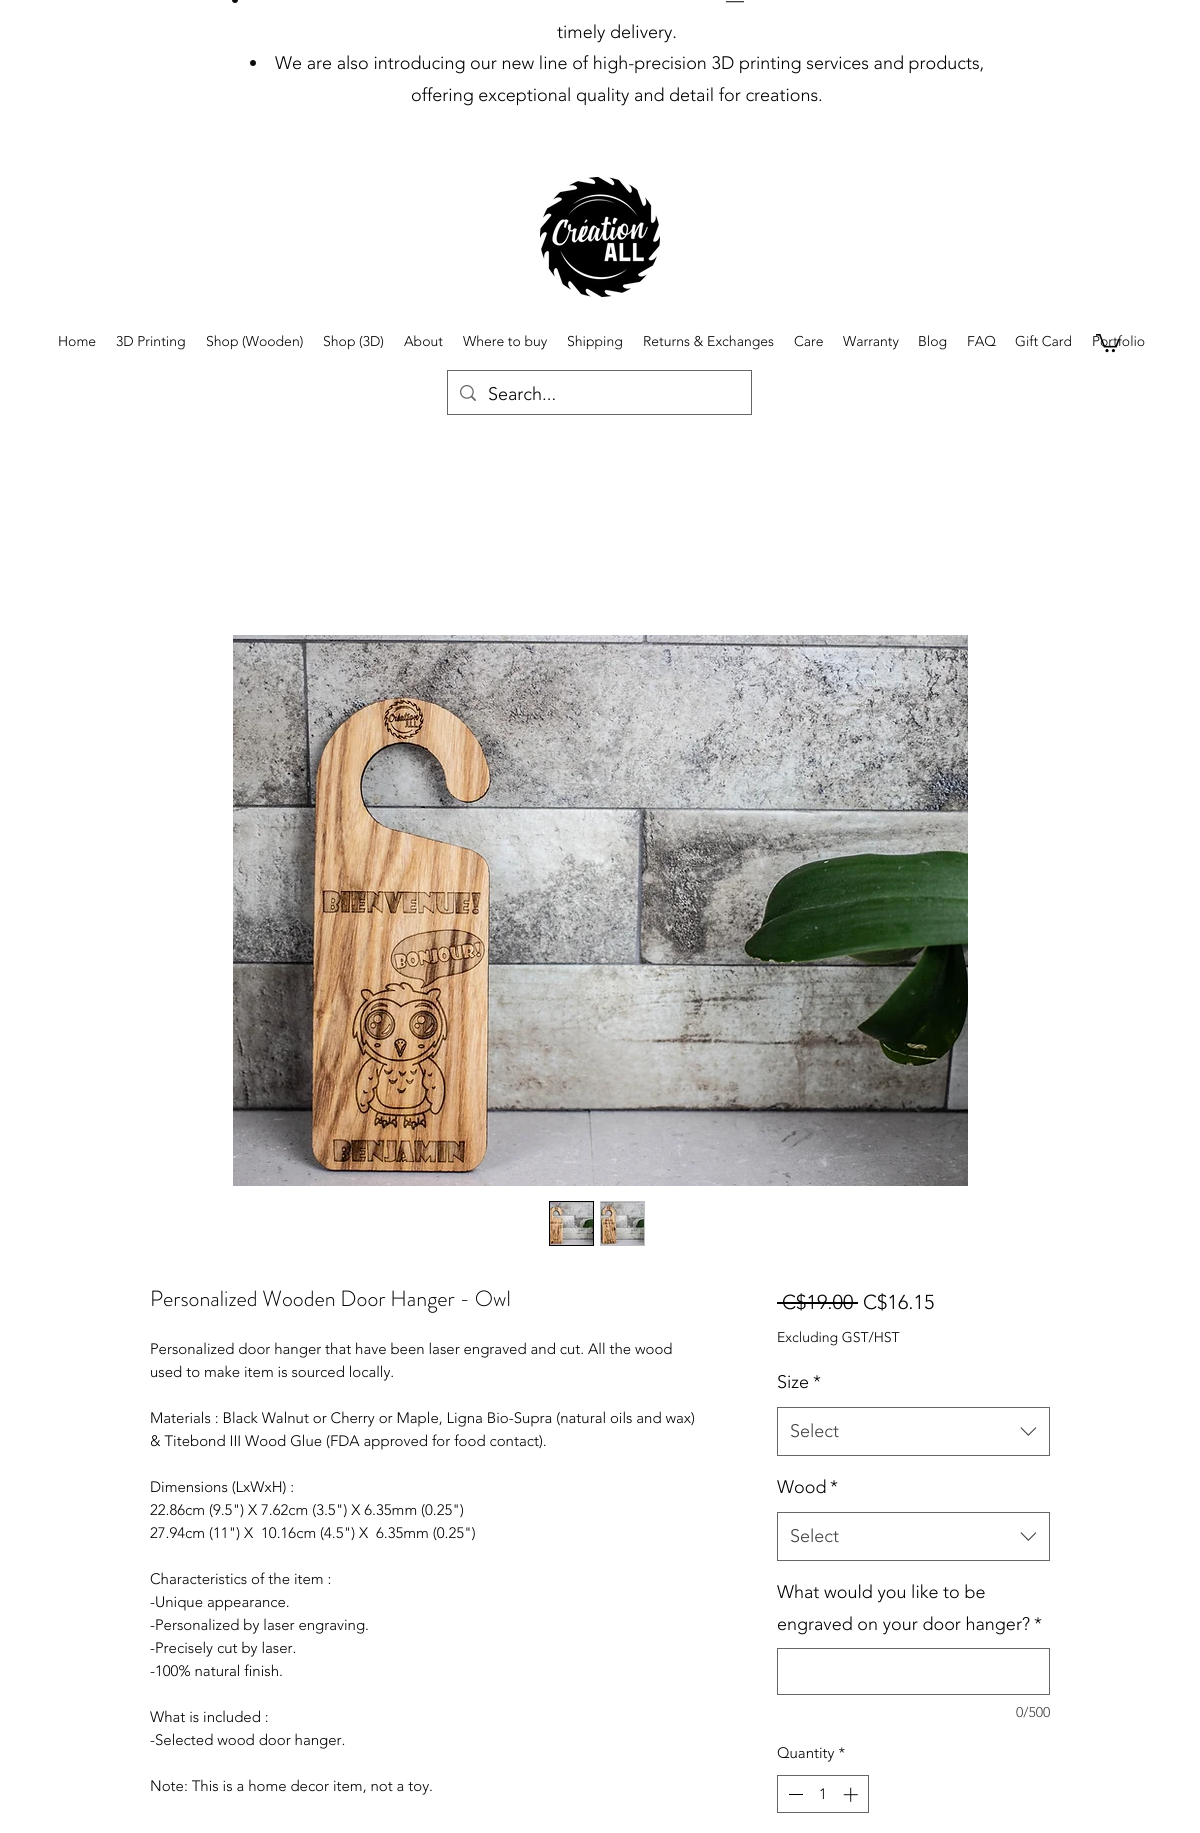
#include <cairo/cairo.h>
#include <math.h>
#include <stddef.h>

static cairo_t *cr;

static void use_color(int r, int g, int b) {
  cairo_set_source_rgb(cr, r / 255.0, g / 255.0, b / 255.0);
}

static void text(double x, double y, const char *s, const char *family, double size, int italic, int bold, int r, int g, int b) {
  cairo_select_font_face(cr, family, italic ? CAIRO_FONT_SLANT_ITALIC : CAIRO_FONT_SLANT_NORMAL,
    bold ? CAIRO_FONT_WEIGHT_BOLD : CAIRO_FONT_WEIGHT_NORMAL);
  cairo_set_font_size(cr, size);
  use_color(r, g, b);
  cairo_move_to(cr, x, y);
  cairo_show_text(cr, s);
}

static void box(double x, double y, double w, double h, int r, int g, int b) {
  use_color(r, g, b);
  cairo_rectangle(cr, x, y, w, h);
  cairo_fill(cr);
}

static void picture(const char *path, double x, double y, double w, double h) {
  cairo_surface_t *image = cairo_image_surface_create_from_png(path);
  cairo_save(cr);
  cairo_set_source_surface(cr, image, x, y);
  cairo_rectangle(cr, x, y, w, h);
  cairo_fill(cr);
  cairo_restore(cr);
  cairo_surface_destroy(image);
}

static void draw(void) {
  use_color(255, 255, 255);
  cairo_paint(cr);
  use_color(13, 12, 12);
  cairo_arc(cr, 235, 0, 3, 0, 2 * M_PI);
  cairo_fill(cr);
  cairo_arc(cr, 253, 63, 3, 0, 2 * M_PI);
  cairo_fill(cr);
  picture("img_01.png", 540, 177, 120, 120);
  cairo_rectangle(cr, 447.5, 370.5, 304, 44);
  use_color(102, 102, 102);
  cairo_set_line_width(cr, 1);
  cairo_stroke(cr);
  picture("img_03.png", 460, 385, 16, 16);
  picture("img_04.png", 233, 635, 735, 551);
  cairo_rectangle(cr, 549.5, 1201.5, 44, 44);
  use_color(0, 0, 0);
  cairo_stroke(cr);
  picture("img_05.png", 550, 1202, 43, 43);
  box(600, 1201, 45, 45, 191, 191, 191);
  picture("img_06.png", 601, 1202, 43, 43);
  box(777, 1302, 81, 2, 0, 0, 0);
  cairo_rectangle(cr, 777.5, 1407.5, 272, 48);
  use_color(102, 102, 102);
  cairo_stroke(cr);
  picture("img_07.png", 1020, 1427, 17, 9);
  cairo_rectangle(cr, 777.5, 1512.5, 272, 48);
  cairo_stroke(cr);
  picture("img_07.png", 1020, 1532, 17, 9);
  cairo_rectangle(cr, 777.5, 1648.5, 272, 46);
  cairo_stroke(cr);
  cairo_rectangle(cr, 777.5, 1775.5, 91, 37);
  cairo_stroke(cr);
  box(789, 1794, 14, 1, 0, 0, 0);
  picture("img_08.png", 843, 1787, 15, 15);
  text(726, 6, "—", "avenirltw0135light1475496 Light", 18, 0, 0, 0, 0, 0);
  text(557, 38, "timely delivery.", "avenirltw0135light1475496 Light", 18, 0, 0, 0, 0, 0);
  text(275, 69, "We are also introducing our new line of high-precision 3D printing services and products,", "avenirltw0135light1475496 Light", 18, 0, 0, 0, 0, 0);
  text(411, 101, "offering exceptional quality and detail for creations.", "avenirltw0135light1475496 Light", 18, 0, 0, 0, 0, 0);
  text(58, 346, "Home", "avenirltw0135light1475496 Light", 14, 0, 0, 0, 0, 0);
  text(116, 346, "3D Printing", "avenirltw0135light1475496 Light", 14, 0, 0, 0, 0, 0);
  text(206, 346, "Shop (Wooden)", "avenirltw0135light1475496 Light", 14, 0, 0, 0, 0, 0);
  text(323, 346, "Shop (3D)", "avenirltw0135light1475496 Light", 14, 0, 0, 0, 0, 0);
  text(404, 346, "About", "avenirltw0135light1475496 Light", 14, 0, 0, 0, 0, 0);
  text(463, 346, "Where to buy", "avenirltw0135light1475496 Light", 14, 0, 0, 0, 0, 0);
  text(567, 346, "Shipping", "avenirltw0135light1475496 Light", 14, 0, 0, 0, 0, 0);
  text(643, 346, "Returns & Exchanges", "avenirltw0135light1475496 Light", 14, 0, 0, 0, 0, 0);
  text(794, 346, "Care", "avenirltw0135light1475496 Light", 14, 0, 0, 0, 0, 0);
  text(843, 346, "Warranty", "avenirltw0135light1475496 Light", 14, 0, 0, 0, 0, 0);
  text(918, 346, "Blog", "avenirltw0135light1475496 Light", 14, 0, 0, 0, 0, 0);
  text(967, 346, "FAQ", "avenirltw0135light1475496 Light", 14, 0, 0, 0, 0, 0);
  text(1015, 346, "Gift Card", "avenirltw0135light1475496 Light", 14, 0, 0, 0, 0, 0);
  text(1092, 346, "Portfolio", "avenirltw0135light1475496 Light", 14, 0, 0, 0, 0, 0);
  picture("img_02.png", 1096, 334, 24, 19);
  text(488, 400, "Search...", "avenirltw0135light1475496 Light", 18, 0, 0, 0, 0, 0);
  text(150, 1306, "Personalized Wooden Door Hanger - Owl", "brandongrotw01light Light", 22, 0, 0, 0, 0, 0);
  text(150, 1354, "Personalized door hanger that have been laser engraved and cut. All the wood", "avenirltw0135light1475496 Light", 15, 0, 0, 0, 0, 0);
  text(150, 1377, "used to make item is sourced locally.", "avenirltw0135light1475496 Light", 15, 0, 0, 0, 0, 0);
  text(150, 1423, "Materials : Black Walnut or Cherry or Maple, Ligna Bio-Supra (natural oils and wax)", "avenirltw0135light1475496 Light", 15, 0, 0, 0, 0, 0);
  text(150, 1446, "& Titebond III Wood Glue (FDA approved for food contact).", "avenirltw0135light1475496 Light", 15, 0, 0, 0, 0, 0);
  text(150, 1492, "Dimensions (LxWxH) :", "avenirltw0135light1475496 Light", 15, 0, 0, 0, 0, 0);
  text(150, 1515, "22.86cm (9.5\") X 7.62cm (3.5\") X 6.35mm (0.25\")", "avenirltw0135light1475496 Light", 15, 0, 0, 0, 0, 0);
  text(150, 1538, "27.94cm (11\") X  10.16cm (4.5\") X  6.35mm (0.25\")", "avenirltw0135light1475496 Light", 15, 0, 0, 0, 0, 0);
  text(150, 1584, "Characteristics of the item :", "avenirltw0135light1475496 Light", 15, 0, 0, 0, 0, 0);
  text(150, 1607, "-Unique appearance.", "avenirltw0135light1475496 Light", 15, 0, 0, 0, 0, 0);
  text(150, 1630, "-Personalized by laser engraving.", "avenirltw0135light1475496 Light", 15, 0, 0, 0, 0, 0);
  text(150, 1653, "-Precisely cut by laser.", "avenirltw0135light1475496 Light", 15, 0, 0, 0, 0, 0);
  text(150, 1676, "-100% natural finish.", "avenirltw0135light1475496 Light", 15, 0, 0, 0, 0, 0);
  text(150, 1722, "What is included :", "avenirltw0135light1475496 Light", 15, 0, 0, 0, 0, 0);
  text(150, 1745, "-Selected wood door hanger.", "avenirltw0135light1475496 Light", 15, 0, 0, 0, 0, 0);
  text(150, 1791, "Note: This is a home decor item, not a toy.", "avenirltw0135light1475496 Light", 15, 0, 0, 0, 0, 0);
  text(782, 1309, "C$19.00", "avenirltw0135light1475496 Light", 20, 0, 0, 0, 0, 0);
  text(863, 1309, "C$16.15", "avenirltw0135light1475496 Light", 20, 0, 0, 0, 0, 0);
  text(777, 1342, "Excluding GST/HST", "avenirltw0135light1475496 Light", 14, 0, 0, 0, 0, 0);
  text(777, 1388, "Size", "avenirltw0135light1475496 Light", 18, 0, 0, 0, 0, 0);
  text(813, 1388, "*", "avenirltw0135light1475496 Light", 18, 0, 0, 0, 0, 0);
  text(790, 1437, "Select", "avenirltw0135light1475496 Light", 18, 0, 0, 64, 64, 64);
  text(777, 1493, "Wood", "avenirltw0135light1475496 Light", 18, 0, 0, 0, 0, 0);
  text(830, 1493, "*", "avenirltw0135light1475496 Light", 18, 0, 0, 0, 0, 0);
  text(790, 1542, "Select", "avenirltw0135light1475496 Light", 18, 0, 0, 64, 64, 64);
  text(777, 1598, "What would you like to be", "avenirltw0135light1475496 Light", 18, 0, 0, 0, 0, 0);
  text(777, 1630, "engraved on your door hanger?", "avenirltw0135light1475496 Light", 18, 0, 0, 0, 0, 0);
  text(1034, 1630, "*", "avenirltw0135light1475496 Light", 18, 0, 0, 0, 0, 0);
  text(1016, 1717, "0/500", "avenirltw0135light1475496 Light", 14, 0, 0, 64, 64, 64);
  text(777, 1758, "Quantity *", "avenirltw0135light1475496 Light", 15, 0, 0, 0, 0, 0);
  text(819, 1799, "1", "avenirltw0135light1475496 Light", 15, 0, 0, 0, 0, 0);
}

int main(void) {
  cairo_surface_t *surface = cairo_image_surface_create(CAIRO_FORMAT_RGB24, 1200, 1833);
  cr = cairo_create(surface);
  cairo_font_options_t *options = cairo_font_options_create();
  cairo_font_options_set_hint_metrics(options, CAIRO_HINT_METRICS_OFF);
  cairo_font_options_set_hint_style(options, CAIRO_HINT_STYLE_NONE);
  cairo_set_font_options(cr, options);
  cairo_set_miter_limit(cr, 4);
  draw();
  cairo_surface_write_to_png(surface, "out.png");
  cairo_font_options_destroy(options);
  cairo_destroy(cr);
  cairo_surface_destroy(surface);
  return 0;
}
